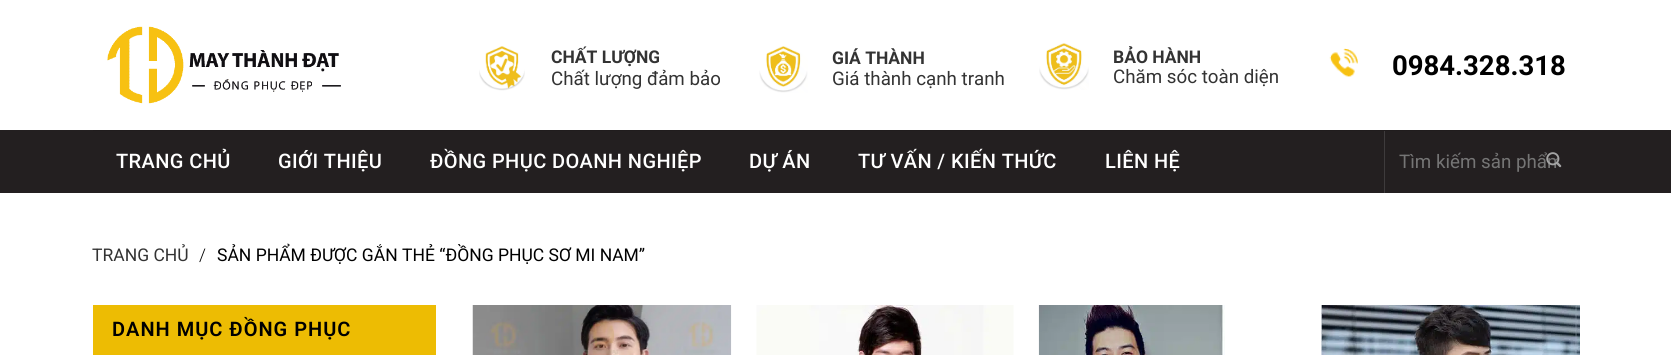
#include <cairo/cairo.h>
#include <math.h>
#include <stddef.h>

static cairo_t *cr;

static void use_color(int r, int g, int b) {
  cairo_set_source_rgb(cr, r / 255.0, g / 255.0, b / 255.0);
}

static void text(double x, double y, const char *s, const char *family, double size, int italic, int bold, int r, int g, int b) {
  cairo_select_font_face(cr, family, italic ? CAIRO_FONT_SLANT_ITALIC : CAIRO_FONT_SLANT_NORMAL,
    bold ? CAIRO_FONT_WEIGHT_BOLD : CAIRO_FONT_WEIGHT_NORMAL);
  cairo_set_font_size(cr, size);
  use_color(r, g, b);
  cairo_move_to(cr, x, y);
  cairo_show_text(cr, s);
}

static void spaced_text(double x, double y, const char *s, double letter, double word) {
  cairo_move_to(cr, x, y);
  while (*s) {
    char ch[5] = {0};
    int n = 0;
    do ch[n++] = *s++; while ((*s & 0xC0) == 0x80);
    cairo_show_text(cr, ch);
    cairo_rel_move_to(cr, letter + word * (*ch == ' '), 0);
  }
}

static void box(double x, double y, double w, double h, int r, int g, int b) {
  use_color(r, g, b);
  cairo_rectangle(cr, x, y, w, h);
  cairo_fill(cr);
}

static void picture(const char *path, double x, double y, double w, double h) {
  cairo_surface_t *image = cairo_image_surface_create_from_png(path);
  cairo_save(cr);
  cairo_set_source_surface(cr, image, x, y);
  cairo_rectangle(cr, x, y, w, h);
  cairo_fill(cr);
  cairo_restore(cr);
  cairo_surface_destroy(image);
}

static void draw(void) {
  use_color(255, 255, 255);
  cairo_paint(cr);
  picture("img_01.png", 107, 26, 234, 78);
  picture("img_02.png", 479, 46, 46, 45);
  picture("img_03.png", 759, 46, 49, 47);
  picture("img_04.png", 1039, 43, 50, 47);
  picture("img_05.png", 1329, 48, 29, 29);
  box(0, 130, 1671, 63, 35, 31, 32);
  box(93, 130, 1487, 1, 32, 28, 29);
  box(1384, 131, 1, 62, 62, 59, 60);
  box(93, 305, 343, 50, 237, 188, 3);
  picture("img_07.png", 472, 305, 260, 50);
  picture("img_08.png", 756, 305, 258, 50);
  picture("img_09.png", 1038, 305, 187, 50);
  picture("img_10.png", 1321, 305, 259, 50);
  text(551, 63, "CHẤT LƯỢNG", "Roboto", 17.5, 0, 1, 51, 51, 51);
  text(551, 85, "Chất lượng đảm bảo", "Roboto", 18.75, 0, 0, 51, 51, 51);
  text(832, 64, "GIÁ THÀNH", "Roboto", 17.5, 0, 1, 51, 51, 51);
  text(832, 85, "Giá thành cạnh tranh", "Roboto", 18.75, 0, 0, 51, 51, 51);
  text(1113, 63, "BẢO HÀNH", "Roboto", 17.5, 0, 1, 51, 51, 51);
  text(1113, 83, "Chăm sóc toàn diện", "Roboto", 18.75, 0, 0, 51, 51, 51);
  text(1392, 75, "0984.328.318", "Roboto", 27.5, 0, 1, 0, 0, 0);
  cairo_select_font_face(cr, "Roboto Medium", CAIRO_FONT_SLANT_NORMAL, CAIRO_FONT_WEIGHT_NORMAL);
  cairo_set_font_size(cr, 20);
  use_color(255, 255, 255);
  spaced_text(116, 168, "TRANG CHỦ", 0.4, 0);
  spaced_text(278, 168, "GIỚI THIỆU", 0.4, 0);
  spaced_text(430, 168, "ĐỒNG PHỤC DOANH NGHIỆP", 0.4, 0);
  spaced_text(749, 168, "DỰ ÁN", 0.4, 0);
  spaced_text(858, 168, "TƯ VẤN / KIẾN THỨC", 0.4, 0);
  spaced_text(1105, 168, "LIÊN HỆ", 0.4, 0);
  cairo_save(cr);
  cairo_rectangle(cr, 1399, 150, 160, 23);
  cairo_clip(cr);
  text(1399, 168, "Tìm kiếm sản phẩm", "Roboto", 18.75, 0, 0, 117, 117, 117);
  cairo_restore(cr);
  picture("img_06.png", 1546, 152, 16, 16);
  text(92, 261, "TRANG CHỦ", "Roboto", 17.5, 0, 0, 51, 51, 51);
  text(199, 261, "/", "Roboto Light", 17.5, 0, 0, 0, 0, 0);
  text(217, 261, "SẢN PHẨM ĐƯỢC GẮN THẺ “ĐỒNG PHỤC SƠ MI NAM”", "Roboto", 17.5, 0, 0, 0, 0, 0);
  cairo_select_font_face(cr, "Roboto SemiBold", CAIRO_FONT_SLANT_NORMAL, CAIRO_FONT_WEIGHT_NORMAL);
  cairo_set_font_size(cr, 20);
  spaced_text(112, 336, "DANH MỤC ĐỒNG PHỤC", 1, 0);
}

int main(void) {
  cairo_surface_t *surface = cairo_image_surface_create(CAIRO_FORMAT_RGB24, 1671, 355);
  cr = cairo_create(surface);
  cairo_font_options_t *options = cairo_font_options_create();
  cairo_font_options_set_hint_metrics(options, CAIRO_HINT_METRICS_OFF);
  cairo_font_options_set_hint_style(options, CAIRO_HINT_STYLE_NONE);
  cairo_set_font_options(cr, options);
  cairo_set_miter_limit(cr, 4);
  draw();
  cairo_surface_write_to_png(surface, "out.png");
  cairo_font_options_destroy(options);
  cairo_destroy(cr);
  cairo_surface_destroy(surface);
  return 0;
}
